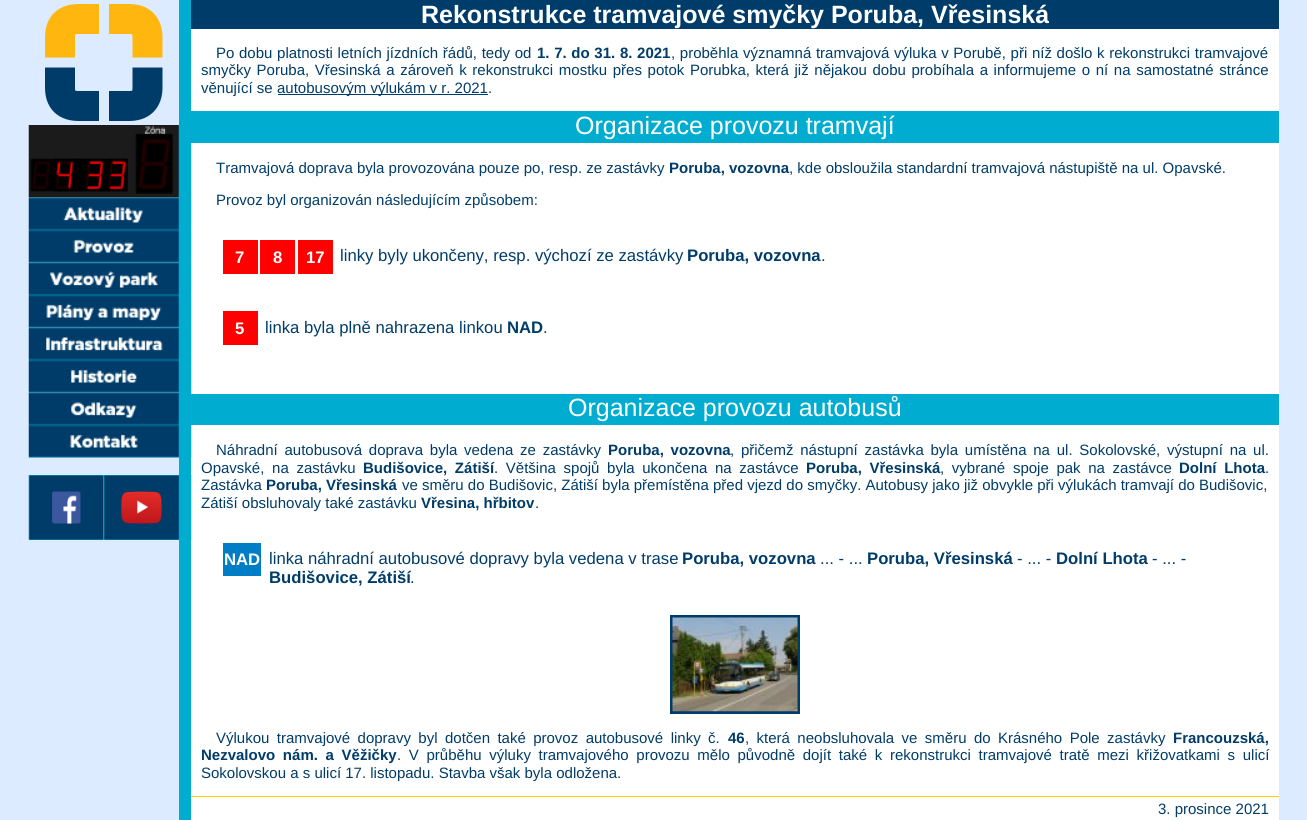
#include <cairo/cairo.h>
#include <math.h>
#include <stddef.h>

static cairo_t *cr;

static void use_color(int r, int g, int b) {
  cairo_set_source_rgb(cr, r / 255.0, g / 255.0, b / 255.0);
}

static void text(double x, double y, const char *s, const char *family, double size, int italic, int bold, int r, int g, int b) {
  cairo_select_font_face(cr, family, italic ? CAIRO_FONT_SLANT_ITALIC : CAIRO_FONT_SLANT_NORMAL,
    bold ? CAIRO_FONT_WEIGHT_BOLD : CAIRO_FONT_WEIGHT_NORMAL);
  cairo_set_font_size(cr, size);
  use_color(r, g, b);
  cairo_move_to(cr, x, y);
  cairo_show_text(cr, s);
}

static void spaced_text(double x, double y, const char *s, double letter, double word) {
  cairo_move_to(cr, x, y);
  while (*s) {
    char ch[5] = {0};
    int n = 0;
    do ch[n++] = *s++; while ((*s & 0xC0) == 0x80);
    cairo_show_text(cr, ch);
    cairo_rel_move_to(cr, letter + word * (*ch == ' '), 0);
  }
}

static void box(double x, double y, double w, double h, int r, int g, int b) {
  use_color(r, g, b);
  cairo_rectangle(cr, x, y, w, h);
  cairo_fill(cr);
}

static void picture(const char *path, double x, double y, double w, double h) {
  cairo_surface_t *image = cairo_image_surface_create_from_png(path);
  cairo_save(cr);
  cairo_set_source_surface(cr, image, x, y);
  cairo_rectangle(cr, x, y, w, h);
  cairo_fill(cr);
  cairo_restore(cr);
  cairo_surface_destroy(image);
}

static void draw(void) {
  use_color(220, 235, 255);
  cairo_paint(cr);
  cairo_new_path(cr);
  cairo_move_to(cr, 60, 57.5);
  cairo_line_to(cr, 60, 37.5);
  cairo_curve_to(cr, 60, 25, 66, 19, 79, 19);
  cairo_line_to(cr, 99, 19);
  use_color(255, 182, 15);
  cairo_set_line_width(cr, 30);
  cairo_stroke(cr);
  cairo_new_path(cr);
  cairo_move_to(cr, 109, 19);
  cairo_line_to(cr, 129, 19);
  cairo_curve_to(cr, 141, 19, 147.5, 25, 147.5, 37.5);
  cairo_line_to(cr, 147.5, 57.5);
  cairo_stroke(cr);
  cairo_new_path(cr);
  cairo_move_to(cr, 99, 106);
  cairo_line_to(cr, 79, 106);
  cairo_curve_to(cr, 66, 106, 60, 100, 60, 87.5);
  cairo_line_to(cr, 60, 67.5);
  use_color(0, 60, 105);
  cairo_stroke(cr);
  cairo_new_path(cr);
  cairo_move_to(cr, 147.5, 67.5);
  cairo_line_to(cr, 147.5, 87.5);
  cairo_curve_to(cr, 147.5, 100, 141, 106, 129, 106);
  cairo_line_to(cr, 109, 106);
  cairo_stroke(cr);
  box(191, 29, 1088, 791, 255, 255, 255);
  box(179, 0, 12, 820, 0, 173, 208);
  box(191, 111, 1088, 32, 0, 173, 208);
  picture("img_01.png", 28, 125, 164, 73);
  picture("img_02.png", 54, 158, 21, 34);
  picture("img_03.png", 73, 158, 10, 34);
  picture("img_04.png", 84, 158, 21, 34);
  picture("img_05.png", 107, 158, 21, 34);
  picture("img_06.png", 28, 197, 164, 33);
  picture("img_07.png", 28, 230, 164, 33);
  picture("img_08.png", 28, 262, 164, 33);
  picture("img_09.png", 28, 295, 164, 33);
  picture("img_10.png", 28, 327, 164, 33);
  picture("img_11.png", 28, 360, 164, 33);
  box(191, 394, 1088, 31, 0, 173, 208);
  picture("img_12.png", 28, 392, 164, 33);
  picture("img_13.png", 28, 425, 164, 33);
  picture("img_14.png", 28, 475, 76, 65);
  picture("img_15.png", 103, 475, 89, 65);
  box(191, 0, 1088, 29, 0, 60, 105);
  box(278, 94, 210, 1, 0, 60, 105);
  box(223, 240, 35, 34, 255, 0, 0);
  box(260, 240, 35, 34, 255, 0, 0);
  box(298, 240, 35, 34, 255, 0, 0);
  box(223, 311, 35, 34, 255, 0, 0);
  box(223, 543, 38, 33, 0, 125, 197);
  cairo_rectangle(cr, 671.5, 616.5, 127, 96);
  use_color(0, 60, 105);
  cairo_set_line_width(cr, 3);
  cairo_stroke(cr);
  picture("img_16.png", 672, 617, 126, 95);
  box(191, 796, 1088, 1, 255, 204, 0);
  text(421, 23, "Rekonstrukce tramvajové smyčky Poruba, Vřesinská", "Liberation Sans", 25, 0, 1, 255, 255, 255);
  cairo_select_font_face(cr, "Liberation Sans", CAIRO_FONT_SLANT_NORMAL, CAIRO_FONT_WEIGHT_NORMAL);
  cairo_set_font_size(cr, 15);
  use_color(0, 60, 105);
  spaced_text(216, 58, "Po dobu platnosti letních jízdních řádů, tedy od", 0, 0.5);
  cairo_select_font_face(cr, "Liberation Sans", CAIRO_FONT_SLANT_NORMAL, CAIRO_FONT_WEIGHT_BOLD);
  spaced_text(537, 58, "1. 7. do 31. 8. 2021", 0, 0.5);
  cairo_select_font_face(cr, "Liberation Sans", CAIRO_FONT_SLANT_NORMAL, CAIRO_FONT_WEIGHT_NORMAL);
  spaced_text(671, 58, ", proběhla významná tramvajová výluka v Porubě, při níž došlo k rekonstrukci tramvajové", 0, 0.5);
  spaced_text(201, 75, "smyčky Poruba, Vřesinská a zároveň k rekonstrukci mostku přes potok Porubka, která již nějakou dobu probíhala a informujeme o ní na samostatné stránce", 0, 1.45);
  text(201, 93, "věnující se", "Liberation Sans", 15, 0, 0, 0, 60, 105);
  text(277, 93, "autobusovým výlukám v r. 2021.", "Liberation Sans", 15, 0, 0, 0, 60, 105);
  text(575, 134, "Organizace provozu tramvají", "Liberation Sans", 25, 0, 0, 255, 255, 255);
  text(216, 173, "Tramvajová doprava byla provozována pouze po, resp. ze zastávky", "Liberation Sans", 15, 0, 0, 0, 60, 105);
  text(669, 173, "Poruba, vozovna", "Liberation Sans", 15, 0, 1, 0, 60, 105);
  text(789, 173, ", kde obsloužila standardní tramvajová nástupiště na ul. Opavské.", "Liberation Sans", 15, 0, 0, 0, 60, 105);
  text(216, 205, "Provoz byl organizován následujícím způsobem:", "Liberation Sans", 15, 0, 0, 0, 60, 105);
  text(235, 263, "7", "Liberation Sans", 16.7, 0, 1, 255, 255, 255);
  text(273, 263, "8", "Liberation Sans", 16.7, 0, 1, 255, 255, 255);
  text(306, 263, "17", "Liberation Sans", 16.7, 0, 1, 255, 255, 255);
  text(340, 261, "linky byly ukončeny, resp. výchozí ze zastávky", "Liberation Sans", 16.7, 0, 0, 0, 60, 105);
  text(687, 261, "Poruba, vozovna", "Liberation Sans", 16.7, 0, 1, 0, 60, 105);
  text(821, 261, ".", "Liberation Sans", 16.7, 0, 0, 0, 60, 105);
  text(235, 334, "5", "Liberation Sans", 16.7, 0, 1, 255, 255, 255);
  text(265, 333, "linka byla plně nahrazena linkou", "Liberation Sans", 16.7, 0, 0, 0, 60, 105);
  text(507, 333, "NAD", "Liberation Sans", 16.7, 0, 1, 0, 60, 105);
  text(543, 333, ".", "Liberation Sans", 16.7, 0, 0, 0, 60, 105);
  text(568, 416, "Organizace provozu autobusů", "Liberation Sans", 25, 0, 0, 255, 255, 255);
  cairo_set_font_size(cr, 15);
  use_color(0, 60, 105);
  spaced_text(216, 455, "Náhradní autobusová doprava byla vedena ze zastávky", 0, 2.6);
  cairo_select_font_face(cr, "Liberation Sans", CAIRO_FONT_SLANT_NORMAL, CAIRO_FONT_WEIGHT_BOLD);
  spaced_text(608, 455, "Poruba, vozovna", 0, 2.6);
  cairo_select_font_face(cr, "Liberation Sans", CAIRO_FONT_SLANT_NORMAL, CAIRO_FONT_WEIGHT_NORMAL);
  spaced_text(730, 455, ", přičemž nástupní zastávka byla umístěna na ul. Sokolovské, výstupní na ul.", 0, 2.6);
  spaced_text(201, 473, "Opavské, na zastávku", 0, 3.5);
  cairo_select_font_face(cr, "Liberation Sans", CAIRO_FONT_SLANT_NORMAL, CAIRO_FONT_WEIGHT_BOLD);
  spaced_text(363, 473, "Budišovice, Zátiší", 0, 3.5);
  cairo_select_font_face(cr, "Liberation Sans", CAIRO_FONT_SLANT_NORMAL, CAIRO_FONT_WEIGHT_NORMAL);
  spaced_text(494, 473, ". Většina spojů byla ukončena na zastávce", 0, 3.5);
  cairo_select_font_face(cr, "Liberation Sans", CAIRO_FONT_SLANT_NORMAL, CAIRO_FONT_WEIGHT_BOLD);
  spaced_text(806, 473, "Poruba, Vřesinská", 0, 3.5);
  cairo_select_font_face(cr, "Liberation Sans", CAIRO_FONT_SLANT_NORMAL, CAIRO_FONT_WEIGHT_NORMAL);
  spaced_text(940, 473, ", vybrané spoje pak na zastávce", 0, 3.5);
  cairo_select_font_face(cr, "Liberation Sans", CAIRO_FONT_SLANT_NORMAL, CAIRO_FONT_WEIGHT_BOLD);
  spaced_text(1179, 473, "Dolní Lhota", 0, 3.5);
  text(1265, 473, ".", "Liberation Sans", 15, 0, 0, 0, 60, 105);
  text(201, 490, "Zastávka", "Liberation Sans", 15, 0, 0, 0, 60, 105);
  text(266, 490, "Poruba, Vřesinská", "Liberation Sans", 15, 0, 1, 0, 60, 105);
  text(402, 490, "ve směru do Budišovic, Zátiší byla přemístěna před vjezd do smyčky. Autobusy jako již obvykle při výlukách tramvají do Budišovic,", "Liberation Sans", 15, 0, 0, 0, 60, 105);
  text(201, 508, "Zátiší obsluhovaly také zastávku", "Liberation Sans", 15, 0, 0, 0, 60, 105);
  text(421, 508, "Vřesina, hřbitov", "Liberation Sans", 15, 0, 1, 0, 60, 105);
  text(535, 508, ".", "Liberation Sans", 15, 0, 0, 0, 60, 105);
  text(224, 565, "NAD", "Liberation Sans", 16.7, 0, 1, 255, 255, 255);
  text(269, 564, "linka náhradní autobusové dopravy byla vedena v trase", "Liberation Sans", 16.7, 0, 0, 0, 60, 105);
  text(682, 564, "Poruba, vozovna", "Liberation Sans", 16.7, 0, 1, 0, 60, 105);
  text(820, 564, "... - ...", "Liberation Sans", 16.7, 0, 0, 0, 60, 105);
  text(867, 564, "Poruba, Vřesinská", "Liberation Sans", 16.7, 0, 1, 0, 60, 105);
  text(1017, 564, "- ... -", "Liberation Sans", 16.7, 0, 0, 0, 60, 105);
  text(1056, 564, "Dolní Lhota", "Liberation Sans", 16.7, 0, 1, 0, 60, 105);
  text(1152, 564, "- ... -", "Liberation Sans", 16.7, 0, 0, 0, 60, 105);
  text(269, 583, "Budišovice, Zátiší", "Liberation Sans", 16.7, 0, 1, 0, 60, 105);
  text(410, 583, ".", "Liberation Sans", 16.7, 0, 0, 0, 60, 105);
  cairo_set_font_size(cr, 15);
  spaced_text(216, 743, "Výlukou tramvajové dopravy byl dotčen také provoz autobusové linky č.", 0, 3.25);
  text(728, 743, "46", "Liberation Sans", 15, 0, 1, 0, 60, 105);
  cairo_select_font_face(cr, "Liberation Sans", CAIRO_FONT_SLANT_NORMAL, CAIRO_FONT_WEIGHT_NORMAL);
  spaced_text(745, 743, ", která neobsluhovala ve směru do Krásného Pole zastávky", 0, 3.25);
  text(1173, 743, "Francouzská,", "Liberation Sans", 15, 0, 1, 0, 60, 105);
  spaced_text(201, 760, "Nezvalovo nám. a Věžičky", 0, 3.5);
  cairo_select_font_face(cr, "Liberation Sans", CAIRO_FONT_SLANT_NORMAL, CAIRO_FONT_WEIGHT_NORMAL);
  spaced_text(397, 760, ". V průběhu výluky tramvajového provozu mělo původně dojít také k rekonstrukci tramvajové tratě mezi křižovatkami s ulicí", 0, 3.5);
  text(201, 778, "Sokolovskou a s ulicí 17. listopadu. Stavba však byla odložena.", "Liberation Sans", 15, 0, 0, 0, 60, 105);
  text(1158, 814, "3. prosince 2021", "Liberation Sans", 15, 0, 0, 0, 60, 105);
}

int main(void) {
  cairo_surface_t *surface = cairo_image_surface_create(CAIRO_FORMAT_RGB24, 1307, 820);
  cr = cairo_create(surface);
  cairo_font_options_t *options = cairo_font_options_create();
  cairo_font_options_set_hint_metrics(options, CAIRO_HINT_METRICS_OFF);
  cairo_font_options_set_hint_style(options, CAIRO_HINT_STYLE_NONE);
  cairo_set_font_options(cr, options);
  cairo_set_miter_limit(cr, 4);
  draw();
  cairo_surface_write_to_png(surface, "out.png");
  cairo_font_options_destroy(options);
  cairo_destroy(cr);
  cairo_surface_destroy(surface);
  return 0;
}
